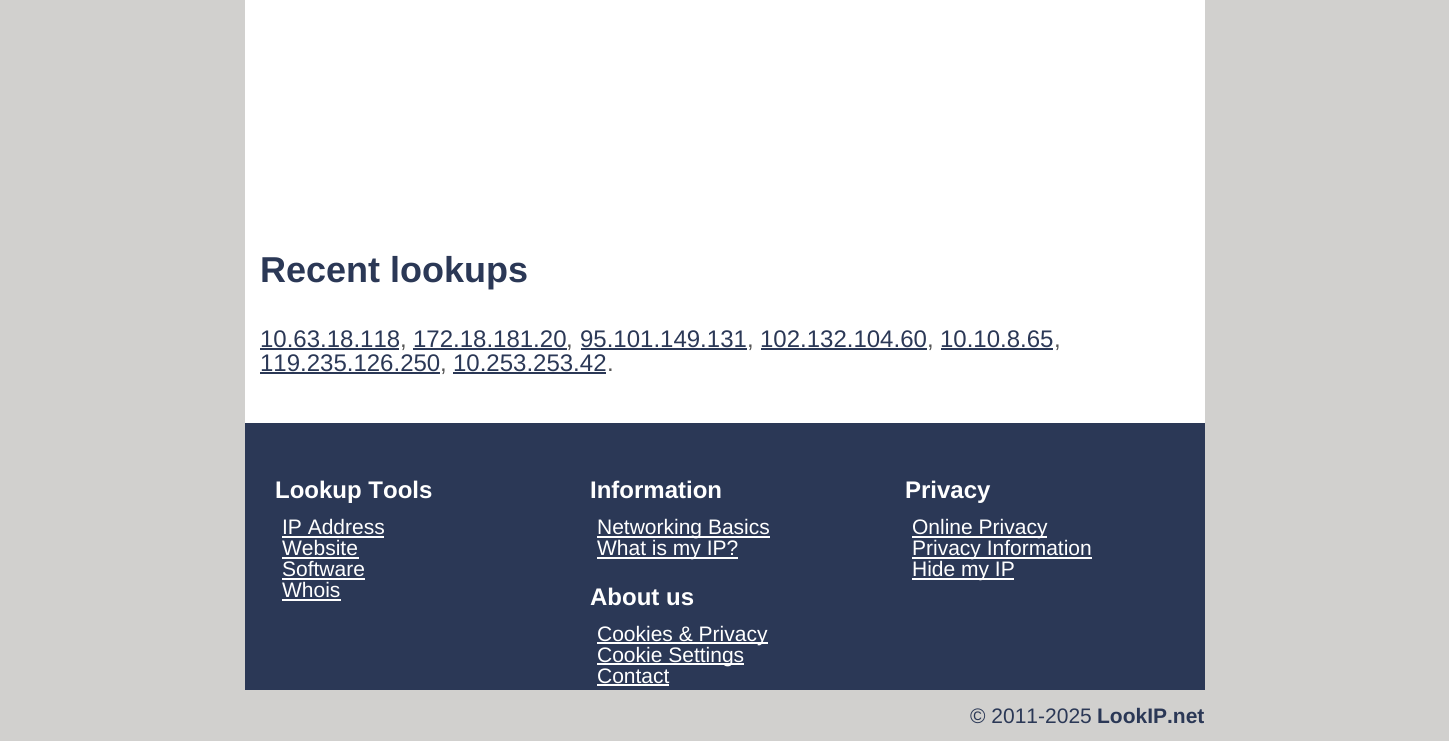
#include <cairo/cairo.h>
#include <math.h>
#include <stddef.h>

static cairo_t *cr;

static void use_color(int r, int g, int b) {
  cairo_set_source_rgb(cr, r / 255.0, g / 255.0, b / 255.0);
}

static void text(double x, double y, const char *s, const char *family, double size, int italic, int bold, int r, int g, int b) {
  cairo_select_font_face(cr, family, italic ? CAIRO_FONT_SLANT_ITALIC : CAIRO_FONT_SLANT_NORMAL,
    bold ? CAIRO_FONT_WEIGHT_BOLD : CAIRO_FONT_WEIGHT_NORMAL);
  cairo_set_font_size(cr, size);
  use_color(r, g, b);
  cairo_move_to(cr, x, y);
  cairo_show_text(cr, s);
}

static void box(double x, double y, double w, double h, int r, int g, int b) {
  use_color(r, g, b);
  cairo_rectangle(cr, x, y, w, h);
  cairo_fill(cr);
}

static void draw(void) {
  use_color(209, 208, 206);
  cairo_paint(cr);
  box(245, 0, 960, 423, 255, 255, 255);
  box(260, 348, 139, 2, 43, 56, 86);
  box(413, 348, 154, 2, 43, 56, 86);
  box(581, 348, 166, 2, 43, 56, 86);
  box(761, 348, 166, 2, 43, 56, 86);
  box(941, 348, 112, 2, 43, 56, 86);
  box(260, 372, 180, 2, 43, 56, 86);
  box(453, 372, 153, 2, 43, 56, 86);
  box(245, 423, 960, 267, 43, 56, 86);
  box(282, 536, 102, 2, 255, 255, 255);
  box(282, 557, 77, 2, 255, 255, 255);
  box(282, 578, 83, 2, 255, 255, 255);
  box(282, 599, 59, 2, 255, 255, 255);
  box(597, 536, 173, 2, 255, 255, 255);
  box(597, 557, 141, 2, 255, 255, 255);
  box(912, 536, 135, 2, 255, 255, 255);
  box(912, 557, 180, 2, 255, 255, 255);
  box(912, 578, 102, 2, 255, 255, 255);
  box(597, 642, 171, 2, 255, 255, 255);
  box(597, 663, 147, 2, 255, 255, 255);
  box(597, 684, 72, 2, 255, 255, 255);
  text(260, 282, "Recent lookups", "Liberation Sans", 36, 0, 1, 43, 56, 86);
  text(260, 347, "10.63.18.118", "Liberation Sans", 24, 0, 0, 43, 56, 86);
  text(400, 347, ",", "Liberation Sans", 24, 0, 0, 85, 85, 85);
  text(413, 347, "172.18.181.20", "Liberation Sans", 24, 0, 0, 43, 56, 86);
  text(566, 347, ",", "Liberation Sans", 24, 0, 0, 85, 85, 85);
  text(580, 347, "95.101.149.131", "Liberation Sans", 24, 0, 0, 43, 56, 86);
  text(747, 347, ",", "Liberation Sans", 24, 0, 0, 85, 85, 85);
  text(760, 347, "102.132.104.60", "Liberation Sans", 24, 0, 0, 43, 56, 86);
  text(927, 347, ",", "Liberation Sans", 24, 0, 0, 85, 85, 85);
  text(940, 347, "10.10.8.65", "Liberation Sans", 24, 0, 0, 43, 56, 86);
  text(1054, 347, ",", "Liberation Sans", 24, 0, 0, 85, 85, 85);
  text(260, 371, "119.235.126.250", "Liberation Sans", 24, 0, 0, 43, 56, 86);
  text(440, 371, ",", "Liberation Sans", 24, 0, 0, 85, 85, 85);
  text(453, 371, "10.253.253.42", "Liberation Sans", 24, 0, 0, 43, 56, 86);
  text(607, 371, ".", "Liberation Sans", 24, 0, 0, 85, 85, 85);
  text(275, 498, "Lookup Tools", "Liberation Sans", 24, 0, 1, 255, 255, 255);
  text(282, 534, "IP Address", "Liberation Sans", 21, 0, 0, 255, 255, 255);
  text(282, 555, "Website", "Liberation Sans", 21, 0, 0, 255, 255, 255);
  text(282, 576, "Software", "Liberation Sans", 21, 0, 0, 255, 255, 255);
  text(282, 597, "Whois", "Liberation Sans", 21, 0, 0, 255, 255, 255);
  text(590, 498, "Information", "Liberation Sans", 24, 0, 1, 255, 255, 255);
  text(597, 534, "Networking Basics", "Liberation Sans", 21, 0, 0, 255, 255, 255);
  text(597, 555, "What is my IP?", "Liberation Sans", 21, 0, 0, 255, 255, 255);
  text(905, 498, "Privacy", "Liberation Sans", 24, 0, 1, 255, 255, 255);
  text(912, 534, "Online Privacy", "Liberation Sans", 21, 0, 0, 255, 255, 255);
  text(912, 555, "Privacy Information", "Liberation Sans", 21, 0, 0, 255, 255, 255);
  text(912, 576, "Hide my IP", "Liberation Sans", 21, 0, 0, 255, 255, 255);
  text(590, 605, "About us", "Liberation Sans", 24, 0, 1, 255, 255, 255);
  text(597, 641, "Cookies & Privacy", "Liberation Sans", 21, 0, 0, 255, 255, 255);
  text(597, 662, "Cookie Settings", "Liberation Sans", 21, 0, 0, 255, 255, 255);
  text(597, 683, "Contact", "Liberation Sans", 21, 0, 0, 255, 255, 255);
  text(970, 723, "© 2011-2025", "Liberation Sans", 21, 0, 0, 43, 56, 86);
  text(1097, 723, "LookIP.net", "Liberation Sans", 21, 0, 1, 43, 56, 86);
}

int main(void) {
  cairo_surface_t *surface = cairo_image_surface_create(CAIRO_FORMAT_RGB24, 1449, 741);
  cr = cairo_create(surface);
  cairo_font_options_t *options = cairo_font_options_create();
  cairo_font_options_set_hint_metrics(options, CAIRO_HINT_METRICS_OFF);
  cairo_font_options_set_hint_style(options, CAIRO_HINT_STYLE_NONE);
  cairo_set_font_options(cr, options);
  cairo_set_miter_limit(cr, 4);
  draw();
  cairo_surface_write_to_png(surface, "out.png");
  cairo_font_options_destroy(options);
  cairo_destroy(cr);
  cairo_surface_destroy(surface);
  return 0;
}
